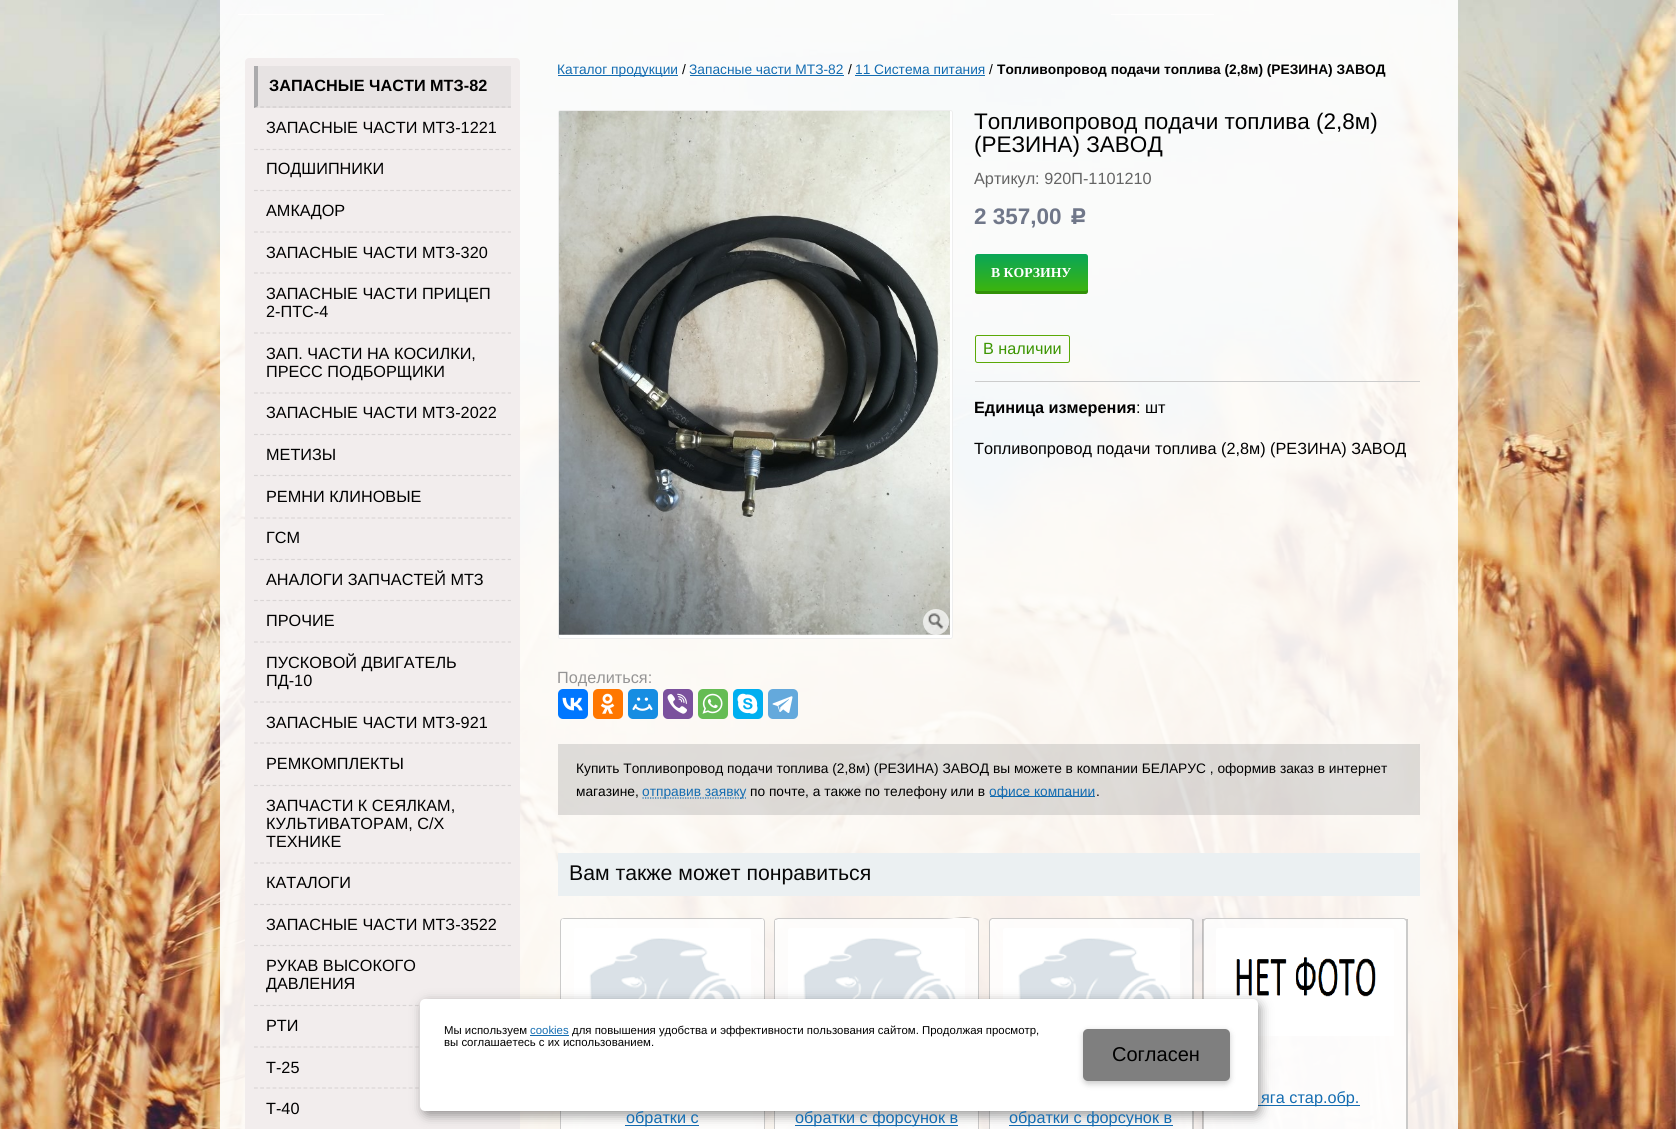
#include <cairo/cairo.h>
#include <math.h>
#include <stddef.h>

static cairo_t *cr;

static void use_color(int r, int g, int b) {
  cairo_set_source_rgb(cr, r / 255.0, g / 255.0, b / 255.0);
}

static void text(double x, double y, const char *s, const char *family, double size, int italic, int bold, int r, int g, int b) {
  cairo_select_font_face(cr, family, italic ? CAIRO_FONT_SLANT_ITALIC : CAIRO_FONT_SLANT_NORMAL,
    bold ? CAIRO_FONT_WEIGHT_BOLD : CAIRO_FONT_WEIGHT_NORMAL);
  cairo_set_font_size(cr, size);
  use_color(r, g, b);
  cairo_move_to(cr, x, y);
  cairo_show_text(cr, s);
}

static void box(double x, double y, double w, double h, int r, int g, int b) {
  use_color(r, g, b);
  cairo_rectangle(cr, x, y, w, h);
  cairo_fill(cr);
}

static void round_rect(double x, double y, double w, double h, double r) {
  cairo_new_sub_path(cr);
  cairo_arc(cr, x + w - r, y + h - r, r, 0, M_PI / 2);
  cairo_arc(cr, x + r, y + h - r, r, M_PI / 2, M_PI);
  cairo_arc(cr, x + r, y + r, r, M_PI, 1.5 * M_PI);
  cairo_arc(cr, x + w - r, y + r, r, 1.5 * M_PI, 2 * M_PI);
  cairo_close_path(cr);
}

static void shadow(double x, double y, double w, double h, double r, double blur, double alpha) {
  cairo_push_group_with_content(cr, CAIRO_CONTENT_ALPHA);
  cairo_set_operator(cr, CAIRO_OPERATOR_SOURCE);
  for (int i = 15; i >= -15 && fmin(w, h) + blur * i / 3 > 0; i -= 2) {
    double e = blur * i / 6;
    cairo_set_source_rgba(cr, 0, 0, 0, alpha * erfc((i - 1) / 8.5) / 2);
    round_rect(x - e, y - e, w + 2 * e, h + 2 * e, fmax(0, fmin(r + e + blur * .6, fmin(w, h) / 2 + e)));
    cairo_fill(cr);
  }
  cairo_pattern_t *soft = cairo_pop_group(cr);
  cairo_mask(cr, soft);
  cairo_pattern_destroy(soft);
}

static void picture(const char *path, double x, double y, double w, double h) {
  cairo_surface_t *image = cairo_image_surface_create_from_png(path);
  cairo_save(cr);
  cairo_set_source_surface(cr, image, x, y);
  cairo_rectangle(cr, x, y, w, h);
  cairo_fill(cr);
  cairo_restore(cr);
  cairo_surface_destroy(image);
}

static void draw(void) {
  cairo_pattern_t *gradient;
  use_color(255, 255, 255);
  cairo_paint(cr);
  picture("img_01.png", 0, 0, 1676, 1129);
  cairo_set_source_rgba(cr, 1, 1, 1, 0.9);
  cairo_rectangle(cr, 220, 0, 1238, 1129);
  cairo_fill(cr);
  box(238, 14, 146, 1, 255, 254, 254);
  box(1111, 14, 103, 1, 255, 254, 254);
  use_color(242, 237, 237);
  round_rect(245, 58, 275, 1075, 4);
  cairo_fill(cr);
  box(254, 66, 257, 42, 231, 227, 227);
  cairo_new_path(cr);
  cairo_move_to(cr, 254, 107);
  cairo_line_to(cr, 511, 107);
  use_color(208, 204, 204);
  cairo_set_line_width(cr, 1.2);
  cairo_set_dash(cr, (double[]){3.75, 2.44}, 2, 0);
  cairo_stroke(cr);
  cairo_set_source_rgba(cr, 0.122, 0.153, 0.176, 0.3);
  cairo_new_path(cr);
  cairo_move_to(cr, 254, 108);
  cairo_line_to(cr, 254, 66);
  cairo_line_to(cr, 258, 66);
  cairo_line_to(cr, 258, 106);
  cairo_close_path(cr);
  cairo_fill(cr);
  cairo_new_path(cr);
  cairo_move_to(cr, 254, 149.5);
  cairo_line_to(cr, 511, 149.5);
  use_color(218, 213, 213);
  cairo_stroke(cr);
  cairo_new_path(cr);
  cairo_move_to(cr, 254, 190.5);
  cairo_line_to(cr, 511, 190.5);
  cairo_stroke(cr);
  cairo_new_path(cr);
  cairo_move_to(cr, 254, 232);
  cairo_line_to(cr, 511, 232);
  cairo_stroke(cr);
  cairo_new_path(cr);
  cairo_move_to(cr, 254, 273);
  cairo_line_to(cr, 511, 273);
  cairo_stroke(cr);
  cairo_new_path(cr);
  cairo_move_to(cr, 254, 333);
  cairo_line_to(cr, 511, 333);
  cairo_stroke(cr);
  cairo_new_path(cr);
  cairo_move_to(cr, 254, 393);
  cairo_line_to(cr, 511, 393);
  cairo_stroke(cr);
  cairo_new_path(cr);
  cairo_move_to(cr, 254, 434.5);
  cairo_line_to(cr, 511, 434.5);
  cairo_stroke(cr);
  cairo_new_path(cr);
  cairo_move_to(cr, 254, 475.5);
  cairo_line_to(cr, 511, 475.5);
  cairo_stroke(cr);
  cairo_new_path(cr);
  cairo_move_to(cr, 254, 518);
  cairo_line_to(cr, 511, 518);
  cairo_stroke(cr);
  cairo_new_path(cr);
  cairo_move_to(cr, 254, 559.5);
  cairo_line_to(cr, 511, 559.5);
  cairo_stroke(cr);
  cairo_new_path(cr);
  cairo_move_to(cr, 254, 600.5);
  cairo_line_to(cr, 511, 600.5);
  cairo_stroke(cr);
  cairo_new_path(cr);
  cairo_move_to(cr, 254, 642);
  cairo_line_to(cr, 511, 642);
  cairo_stroke(cr);
  cairo_new_path(cr);
  cairo_move_to(cr, 254, 702);
  cairo_line_to(cr, 511, 702);
  cairo_stroke(cr);
  cairo_new_path(cr);
  cairo_move_to(cr, 254, 743);
  cairo_line_to(cr, 511, 743);
  cairo_stroke(cr);
  cairo_new_path(cr);
  cairo_move_to(cr, 254, 785.5);
  cairo_line_to(cr, 511, 785.5);
  cairo_stroke(cr);
  cairo_new_path(cr);
  cairo_move_to(cr, 254, 863);
  cairo_line_to(cr, 511, 863);
  cairo_stroke(cr);
  cairo_new_path(cr);
  cairo_move_to(cr, 254, 904.5);
  cairo_line_to(cr, 511, 904.5);
  cairo_stroke(cr);
  cairo_new_path(cr);
  cairo_move_to(cr, 254, 945.5);
  cairo_line_to(cr, 511, 945.5);
  cairo_stroke(cr);
  cairo_new_path(cr);
  cairo_move_to(cr, 254, 1005.5);
  cairo_line_to(cr, 511, 1005.5);
  cairo_stroke(cr);
  cairo_new_path(cr);
  cairo_move_to(cr, 254, 1047);
  cairo_line_to(cr, 511, 1047);
  cairo_stroke(cr);
  cairo_new_path(cr);
  cairo_move_to(cr, 254, 1088);
  cairo_line_to(cr, 511, 1088);
  cairo_stroke(cr);
  box(558, 75, 120, 1, 19, 108, 177);
  box(690, 75, 154, 1, 19, 108, 177);
  box(855, 75, 130, 1, 19, 108, 177);
  use_color(255, 255, 255);
  round_rect(558.5, 110.5, 394, 528, 2);
  cairo_fill_preserve(cr);
  use_color(238, 238, 238);
  cairo_set_line_width(cr, 1);
  cairo_set_dash(cr, NULL, 0, 0);
  cairo_stroke(cr);
  picture("img_02.png", 558, 111, 392, 524);
  cairo_set_source_rgba(cr, 1, 1, 1, 0.7);
  cairo_arc(cr, 936, 622, 13, 0, 2 * M_PI);
  cairo_fill(cr);
  picture("img_03.png", 928, 613, 16, 16);
  gradient = cairo_pattern_create_linear(1031, 294, 1031, 254);
  cairo_pattern_add_color_stop_rgba(gradient, 0, 0.251, 0.71, 0.027, 1);
  cairo_pattern_add_color_stop_rgba(gradient, 1, 0.035, 0.651, 0.345, 1);
  cairo_set_source(cr, gradient);
  cairo_pattern_destroy(gradient);
  round_rect(975, 254, 113, 40, 2.5);
  cairo_fill(cr);
  cairo_set_source_rgba(cr, 0, 0, 0, 0.2);
  cairo_new_path(cr);
  cairo_move_to(cr, 975, 289);
  cairo_line_to(cr, 975, 292);
  cairo_curve_to(cr, 975, 293, 976, 294, 978, 294);
  cairo_line_to(cr, 1086, 294);
  cairo_curve_to(cr, 1087, 294, 1088, 293, 1088, 292);
  cairo_line_to(cr, 1088, 289);
  cairo_curve_to(cr, 1088, 290, 1086, 291, 1085, 291);
  cairo_line_to(cr, 978, 291);
  cairo_curve_to(cr, 976, 291, 975, 290, 975, 289);
  cairo_close_path(cr);
  cairo_fill(cr);
  round_rect(975.5, 335.5, 94, 27, 2);
  use_color(91, 169, 7);
  cairo_stroke(cr);
  box(975, 381, 445, 1, 204, 204, 204);
  use_color(0, 119, 255);
  round_rect(558, 689, 30, 30, 5);
  cairo_fill(cr);
  picture("img_04.png", 562, 697, 21, 14);
  use_color(255, 119, 0);
  round_rect(593, 689, 30, 30, 5);
  cairo_fill(cr);
  picture("img_05.png", 600, 693, 15, 21);
  use_color(22, 141, 226);
  round_rect(628, 689, 30, 30, 5);
  cairo_fill(cr);
  picture("img_06.png", 632, 697, 21, 14);
  use_color(123, 81, 157);
  round_rect(663, 689, 30, 30, 5);
  cairo_fill(cr);
  picture("img_07.png", 667, 693, 20, 21);
  use_color(101, 188, 84);
  round_rect(698, 689, 30, 30, 5);
  cairo_fill(cr);
  picture("img_08.png", 702, 693, 21, 21);
  use_color(0, 175, 240);
  round_rect(733, 689, 30, 30, 5);
  cairo_fill(cr);
  picture("img_09.png", 737, 693, 21, 21);
  use_color(100, 169, 220);
  round_rect(768, 689, 30, 30, 5);
  cairo_fill(cr);
  picture("img_10.png", 772, 696, 21, 17);
  cairo_set_source_rgba(cr, 0.588, 0.588, 0.588, 0.3);
  cairo_rectangle(cr, 558, 744, 862, 71);
  cairo_fill(cr);
  cairo_new_path(cr);
  cairo_move_to(cr, 642.5, 798);
  cairo_line_to(cr, 746, 798);
  use_color(19, 108, 177);
  cairo_set_line_width(cr, 1.2);
  cairo_set_dash(cr, (double[]){1.25, 1.25}, 2, 0);
  cairo_stroke(cr);
  box(990, 796, 105, 1, 19, 108, 177);
  box(558, 853, 862, 43, 235, 240, 242);
  cairo_set_source_rgba(cr, 1, 1, 1, 0.8);
  round_rect(1203, 918, 205, 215, 4);
  cairo_fill(cr);
  cairo_set_source_rgba(cr, 0, 0, 0, 0.2);
  cairo_new_path(cr);
  cairo_move_to(cr, 1206, 918);
  cairo_line_to(cr, 1204, 919);
  cairo_line_to(cr, 1205, 920);
  cairo_line_to(cr, 1206, 919);
  cairo_line_to(cr, 1404, 919);
  cairo_line_to(cr, 1405, 920);
  cairo_line_to(cr, 1406, 919);
  cairo_line_to(cr, 1404, 918);
  cairo_close_path(cr);
  cairo_fill(cr);
  cairo_new_path(cr);
  cairo_move_to(cr, 1408, 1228);
  cairo_line_to(cr, 1407, 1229);
  cairo_line_to(cr, 1406, 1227);
  cairo_line_to(cr, 1406, 921);
  cairo_line_to(cr, 1405, 920);
  cairo_line_to(cr, 1406, 919);
  cairo_line_to(cr, 1408, 919);
  cairo_close_path(cr);
  cairo_fill(cr);
  cairo_new_path(cr);
  cairo_move_to(cr, 1202, 919);
  cairo_line_to(cr, 1204, 919);
  cairo_line_to(cr, 1205, 920);
  cairo_line_to(cr, 1204, 921);
  cairo_line_to(cr, 1204, 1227);
  cairo_line_to(cr, 1203, 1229);
  cairo_line_to(cr, 1202, 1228);
  cairo_close_path(cr);
  cairo_fill(cr);
  use_color(255, 255, 255);
  cairo_new_path(cr);
  cairo_move_to(cr, 1218.5, 928);
  cairo_line_to(cr, 1391.5, 928);
  cairo_curve_to(cr, 1393, 928, 1394, 929, 1394, 930.5);
  cairo_line_to(cr, 1394, 1036);
  cairo_line_to(cr, 1216, 1036);
  cairo_line_to(cr, 1216, 930.5);
  cairo_curve_to(cr, 1216, 929, 1217, 928, 1218.5, 928);
  cairo_close_path(cr);
  cairo_fill(cr);
  picture("img_11.png", 1236, 957, 140, 40);
  box(1251, 1105, 109, 1, 19, 108, 177);
  cairo_set_source_rgba(cr, 1, 1, 1, 0.8);
  round_rect(560, 918, 205, 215, 4);
  cairo_fill(cr);
  cairo_set_source_rgba(cr, 0, 0, 0, 0.2);
  cairo_new_path(cr);
  cairo_move_to(cr, 564, 918);
  cairo_line_to(cr, 561, 919);
  cairo_line_to(cr, 562, 919);
  cairo_line_to(cr, 564, 919);
  cairo_line_to(cr, 761, 919);
  cairo_line_to(cr, 763, 919);
  cairo_line_to(cr, 764, 919);
  cairo_line_to(cr, 761, 918);
  cairo_close_path(cr);
  cairo_fill(cr);
  cairo_new_path(cr);
  cairo_move_to(cr, 764, 919);
  cairo_line_to(cr, 765, 921);
  cairo_line_to(cr, 765, 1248);
  cairo_line_to(cr, 764, 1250);
  cairo_line_to(cr, 764, 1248);
  cairo_line_to(cr, 764, 921);
  cairo_line_to(cr, 763, 919);
  cairo_close_path(cr);
  cairo_fill(cr);
  cairo_new_path(cr);
  cairo_move_to(cr, 560, 921);
  cairo_line_to(cr, 560, 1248);
  cairo_line_to(cr, 561, 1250);
  cairo_line_to(cr, 561, 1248);
  cairo_line_to(cr, 561, 921);
  cairo_line_to(cr, 562, 919);
  cairo_line_to(cr, 561, 919);
  cairo_close_path(cr);
  cairo_fill(cr);
  use_color(255, 255, 255);
  cairo_new_path(cr);
  cairo_move_to(cr, 576.5, 928);
  cairo_line_to(cr, 748.5, 928);
  cairo_curve_to(cr, 750, 928, 751, 929, 751, 930.5);
  cairo_line_to(cr, 751, 1066);
  cairo_line_to(cr, 574, 1066);
  cairo_line_to(cr, 574, 930.5);
  cairo_curve_to(cr, 574, 929, 575, 928, 576.5, 928);
  cairo_close_path(cr);
  cairo_fill(cr);
  picture("img_12.png", 589, 938, 153, 61);
  box(625, 1125, 74, 1, 19, 108, 177);
  cairo_set_source_rgba(cr, 1, 1, 1, 0.8);
  round_rect(774, 918, 205, 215, 4);
  cairo_fill(cr);
  cairo_set_source_rgba(cr, 0, 0, 0, 0.2);
  cairo_new_path(cr);
  cairo_move_to(cr, 778, 918);
  cairo_line_to(cr, 775, 919);
  cairo_line_to(cr, 776, 920);
  cairo_line_to(cr, 778, 919);
  cairo_line_to(cr, 942, 919);
  cairo_curve_to(cr, 954, 919, 967, 914, 977, 920);
  cairo_line_to(cr, 978, 919);
  cairo_line_to(cr, 975, 918);
  cairo_close_path(cr);
  cairo_fill(cr);
  cairo_new_path(cr);
  cairo_move_to(cr, 978, 919);
  cairo_line_to(cr, 979, 920);
  cairo_line_to(cr, 979, 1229);
  cairo_line_to(cr, 978, 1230);
  cairo_line_to(cr, 977, 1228);
  cairo_line_to(cr, 978, 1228);
  cairo_line_to(cr, 978, 921);
  cairo_line_to(cr, 977, 920);
  cairo_close_path(cr);
  cairo_fill(cr);
  cairo_new_path(cr);
  cairo_move_to(cr, 775, 919);
  cairo_line_to(cr, 774, 921);
  cairo_line_to(cr, 774, 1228);
  cairo_line_to(cr, 774, 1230);
  cairo_line_to(cr, 775, 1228);
  cairo_line_to(cr, 775, 920);
  cairo_line_to(cr, 776, 920);
  cairo_close_path(cr);
  cairo_fill(cr);
  use_color(255, 255, 255);
  cairo_new_path(cr);
  cairo_move_to(cr, 790.5, 928);
  cairo_line_to(cr, 962.5, 928);
  cairo_curve_to(cr, 964, 928, 965, 929, 965, 930.5);
  cairo_line_to(cr, 965, 1066);
  cairo_line_to(cr, 788, 1066);
  cairo_line_to(cr, 788, 930.5);
  cairo_curve_to(cr, 788, 929, 789, 928, 790.5, 928);
  cairo_close_path(cr);
  cairo_fill(cr);
  picture("img_13.png", 803, 938, 154, 61);
  box(795, 1125, 163, 1, 19, 108, 177);
  cairo_set_source_rgba(cr, 1, 1, 1, 0.8);
  round_rect(989, 918, 205, 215, 4);
  cairo_fill(cr);
  cairo_set_source_rgba(cr, 0, 0, 0, 0.2);
  cairo_new_path(cr);
  cairo_move_to(cr, 992, 918);
  cairo_line_to(cr, 990, 919);
  cairo_line_to(cr, 991, 920);
  cairo_line_to(cr, 992, 919);
  cairo_line_to(cr, 1190, 919);
  cairo_line_to(cr, 1191, 920);
  cairo_line_to(cr, 1193, 919);
  cairo_line_to(cr, 1190, 918);
  cairo_close_path(cr);
  cairo_fill(cr);
  cairo_new_path(cr);
  cairo_move_to(cr, 1193, 919);
  cairo_line_to(cr, 1194, 920);
  cairo_line_to(cr, 1194, 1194);
  cairo_curve_to(cr, 1194, 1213, 1207, 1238, 1193, 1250);
  cairo_line_to(cr, 1192, 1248);
  cairo_line_to(cr, 1192, 921);
  cairo_line_to(cr, 1191, 920);
  cairo_close_path(cr);
  cairo_fill(cr);
  cairo_new_path(cr);
  cairo_move_to(cr, 990, 919);
  cairo_line_to(cr, 989, 921);
  cairo_line_to(cr, 989, 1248);
  cairo_line_to(cr, 989, 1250);
  cairo_line_to(cr, 990, 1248);
  cairo_line_to(cr, 990, 921);
  cairo_line_to(cr, 991, 920);
  cairo_close_path(cr);
  cairo_fill(cr);
  use_color(255, 255, 255);
  cairo_new_path(cr);
  cairo_move_to(cr, 1005.5, 928);
  cairo_line_to(cr, 1177.5, 928);
  cairo_curve_to(cr, 1179, 928, 1180, 929, 1180, 930.5);
  cairo_line_to(cr, 1180, 1066);
  cairo_line_to(cr, 1003, 1066);
  cairo_line_to(cr, 1003, 930.5);
  cairo_curve_to(cr, 1003, 929, 1004, 928, 1005.5, 928);
  cairo_close_path(cr);
  cairo_fill(cr);
  picture("img_13.png", 1018, 938, 154, 61);
  box(1009, 1125, 164, 1, 19, 108, 177);
  use_color(0, 0, 0);
  shadow(423, 1003, 837, 112, 5, 6, 0.4);
  use_color(255, 255, 255);
  round_rect(420, 999, 838, 112, 5);
  cairo_fill(cr);
  box(530, 1035, 39, 1, 19, 108, 177);
  use_color(0, 0, 0);
  shadow(1083, 1031, 147, 53, 5, 3, 0.2);
  use_color(127, 127, 127);
  round_rect(1083, 1029, 147, 52, 5);
  cairo_fill(cr);
  text(269, 91, "ЗАПАСНЫЕ ЧАСТИ МТЗ-82", "Liberation Sans", 16.25, 0, 1, 0, 0, 0);
  text(266, 133, "ЗАПАСНЫЕ ЧАСТИ МТЗ-1221", "Liberation Sans", 16.25, 0, 0, 0, 0, 0);
  text(266, 174, "ПОДШИПНИКИ", "Liberation Sans", 16.25, 0, 0, 0, 0, 0);
  text(266, 216, "АМКАДОР", "Liberation Sans", 16.25, 0, 0, 0, 0, 0);
  text(266, 258, "ЗАПАСНЫЕ ЧАСТИ МТЗ-320", "Liberation Sans", 16.25, 0, 0, 0, 0, 0);
  text(266, 299, "ЗАПАСНЫЕ ЧАСТИ ПРИЦЕП", "Liberation Sans", 16.25, 0, 0, 0, 0, 0);
  text(266, 317, "2-ПТС-4", "Liberation Sans", 16.25, 0, 0, 0, 0, 0);
  text(266, 359, "ЗАП. ЧАСТИ НА КОСИЛКИ,", "Liberation Sans", 16.25, 0, 0, 0, 0, 0);
  text(266, 377, "ПРЕСС ПОДБОРЩИКИ", "Liberation Sans", 16.25, 0, 0, 0, 0, 0);
  text(266, 418, "ЗАПАСНЫЕ ЧАСТИ МТЗ-2022", "Liberation Sans", 16.25, 0, 0, 0, 0, 0);
  text(266, 460, "МЕТИЗЫ", "Liberation Sans", 16.25, 0, 0, 0, 0, 0);
  text(266, 502, "РЕМНИ КЛИНОВЫЕ", "Liberation Sans", 16.25, 0, 0, 0, 0, 0);
  text(266, 543, "ГСМ", "Liberation Sans", 16.25, 0, 0, 0, 0, 0);
  text(266, 585, "АНАЛОГИ ЗАПЧАСТЕЙ МТЗ", "Liberation Sans", 16.25, 0, 0, 0, 0, 0);
  text(266, 626, "ПРОЧИЕ", "Liberation Sans", 16.25, 0, 0, 0, 0, 0);
  text(266, 668, "ПУСКОВОЙ ДВИГАТЕЛЬ", "Liberation Sans", 16.25, 0, 0, 0, 0, 0);
  text(266, 686, "ПД-10", "Liberation Sans", 16.25, 0, 0, 0, 0, 0);
  text(266, 728, "ЗАПАСНЫЕ ЧАСТИ МТЗ-921", "Liberation Sans", 16.25, 0, 0, 0, 0, 0);
  text(266, 769, "РЕМКОМПЛЕКТЫ", "Liberation Sans", 16.25, 0, 0, 0, 0, 0);
  text(266, 811, "ЗАПЧАСТИ К СЕЯЛКАМ,", "Liberation Sans", 16.25, 0, 0, 0, 0, 0);
  text(266, 829, "КУЛЬТИВАТОРАМ, С/Х", "Liberation Sans", 16.25, 0, 0, 0, 0, 0);
  text(266, 847, "ТЕХНИКЕ", "Liberation Sans", 16.25, 0, 0, 0, 0, 0);
  text(266, 888, "КАТАЛОГИ", "Liberation Sans", 16.25, 0, 0, 0, 0, 0);
  text(266, 930, "ЗАПАСНЫЕ ЧАСТИ МТЗ-3522", "Liberation Sans", 16.25, 0, 0, 0, 0, 0);
  text(266, 971, "РУКАВ ВЫСОКОГО", "Liberation Sans", 16.25, 0, 0, 0, 0, 0);
  text(266, 989, "ДАВЛЕНИЯ", "Liberation Sans", 16.25, 0, 0, 0, 0, 0);
  text(266, 1031, "РТИ", "Liberation Sans", 16.25, 0, 0, 0, 0, 0);
  text(266, 1073, "Т-25", "Liberation Sans", 16.25, 0, 0, 0, 0, 0);
  text(266, 1114, "Т-40", "Liberation Sans", 16.25, 0, 0, 0, 0, 0);
  text(557, 74, "Каталог продукции", "Liberation Sans", 13.75, 0, 0, 19, 108, 177);
  text(682, 74, "/", "Liberation Sans", 13.75, 0, 0, 0, 0, 0);
  text(689, 74, "Запасные части МТЗ-82", "Liberation Sans", 13.75, 0, 0, 19, 108, 177);
  text(848, 74, "/", "Liberation Sans", 13.75, 0, 0, 0, 0, 0);
  text(855, 74, "11 Система питания", "Liberation Sans", 13.75, 0, 0, 19, 108, 177);
  text(989, 74, "/", "Liberation Sans", 13.75, 0, 0, 0, 0, 0);
  text(997, 74, "Топливопровод подачи топлива (2,8м) (РЕЗИНА) ЗАВОД", "Liberation Sans", 13.75, 0, 1, 0, 0, 0);
  text(974, 129, "Топливопровод подачи топлива (2,8м)", "Liberation Sans", 22.5, 0, 0, 0, 0, 0);
  text(974, 152, "(РЕЗИНА) ЗАВОД", "Liberation Sans", 22.5, 0, 0, 0, 0, 0);
  text(974, 184, "Артикул: 920П-1101210", "Liberation Sans", 16.25, 0, 0, 100, 100, 100);
  text(974, 224, "2 357,00", "Liberation Sans", 22.5, 0, 1, 112, 119, 137);
  text(1068, 224, "c", "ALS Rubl", 22.5, 0, 0, 112, 119, 137);
  text(991, 277, "В КОРЗИНУ", "Liberation Serif", 13.75, 0, 1, 255, 255, 255);
  text(983, 354, "В наличии", "Liberation Sans", 16.25, 0, 0, 60, 149, 2);
  text(974, 413, "Единица измерения", "Liberation Sans", 16.25, 0, 1, 0, 0, 0);
  text(1136, 413, ": шт", "Liberation Sans", 16.25, 0, 0, 0, 0, 0);
  text(974, 454, "Топливопровод подачи топлива (2,8м) (РЕЗИНА) ЗАВОД", "Liberation Sans", 16.25, 0, 0, 0, 0, 0);
  text(557, 683, "Поделиться:", "Liberation Sans", 16.25, 0, 0, 149, 148, 148);
  text(576, 773, "Купить Топливопровод подачи топлива (2,8м) (РЕЗИНА) ЗАВОД вы можете в компании БЕЛАРУС , оформив заказ в интернет", "Liberation Sans", 13.75, 0, 0, 0, 0, 0);
  text(576, 796, "магазине,", "Liberation Sans", 13.75, 0, 0, 0, 0, 0);
  text(642, 796, "отправив заявку", "Liberation Sans", 13.75, 0, 0, 19, 108, 177);
  text(750, 796, "по почте, а также по телефону или в", "Liberation Sans", 13.75, 0, 0, 0, 0, 0);
  text(989, 796, "офисе компании", "Liberation Sans", 13.75, 0, 0, 19, 108, 177);
  text(1096, 796, ".", "Liberation Sans", 13.75, 0, 0, 0, 0, 0);
  text(569, 880, "Вам также может понравиться", "Liberation Sans", 21.25, 0, 0, 7, 7, 7);
  text(1261, 1103, "яга стар.обр.", "Liberation Sans", 16.25, 0, 0, 19, 108, 177);
  text(626, 1123, "обратки с", "Liberation Sans", 16.25, 0, 0, 19, 108, 177);
  text(795, 1123, "обратки с форсунок в", "Liberation Sans", 16.25, 0, 0, 19, 108, 177);
  text(1009, 1123, "обратки с форсунок в", "Liberation Sans", 16.25, 0, 0, 19, 108, 177);
  text(444, 1034, "Мы используем", "Liberation Sans", 11.4, 0, 0, 0, 0, 0);
  text(530, 1034, "cookies", "Liberation Sans", 11.4, 0, 0, 19, 108, 177);
  text(572, 1034, "для повышения удобства и эффективности пользования сайтом. Продолжая просмотр,", "Liberation Sans", 11.4, 0, 0, 0, 0, 0);
  text(444, 1046, "вы соглашаетесь с их использованием.", "Liberation Sans", 11.4, 0, 0, 0, 0, 0);
  text(1112, 1061, "Cогласен", "Liberation Sans", 20, 0, 0, 0, 0, 0);
}

int main(void) {
  cairo_surface_t *surface = cairo_image_surface_create(CAIRO_FORMAT_RGB24, 1676, 1129);
  cr = cairo_create(surface);
  cairo_font_options_t *options = cairo_font_options_create();
  cairo_font_options_set_hint_metrics(options, CAIRO_HINT_METRICS_OFF);
  cairo_font_options_set_hint_style(options, CAIRO_HINT_STYLE_NONE);
  cairo_set_font_options(cr, options);
  cairo_set_miter_limit(cr, 4);
  draw();
  cairo_surface_write_to_png(surface, "out.png");
  cairo_font_options_destroy(options);
  cairo_destroy(cr);
  cairo_surface_destroy(surface);
  return 0;
}
